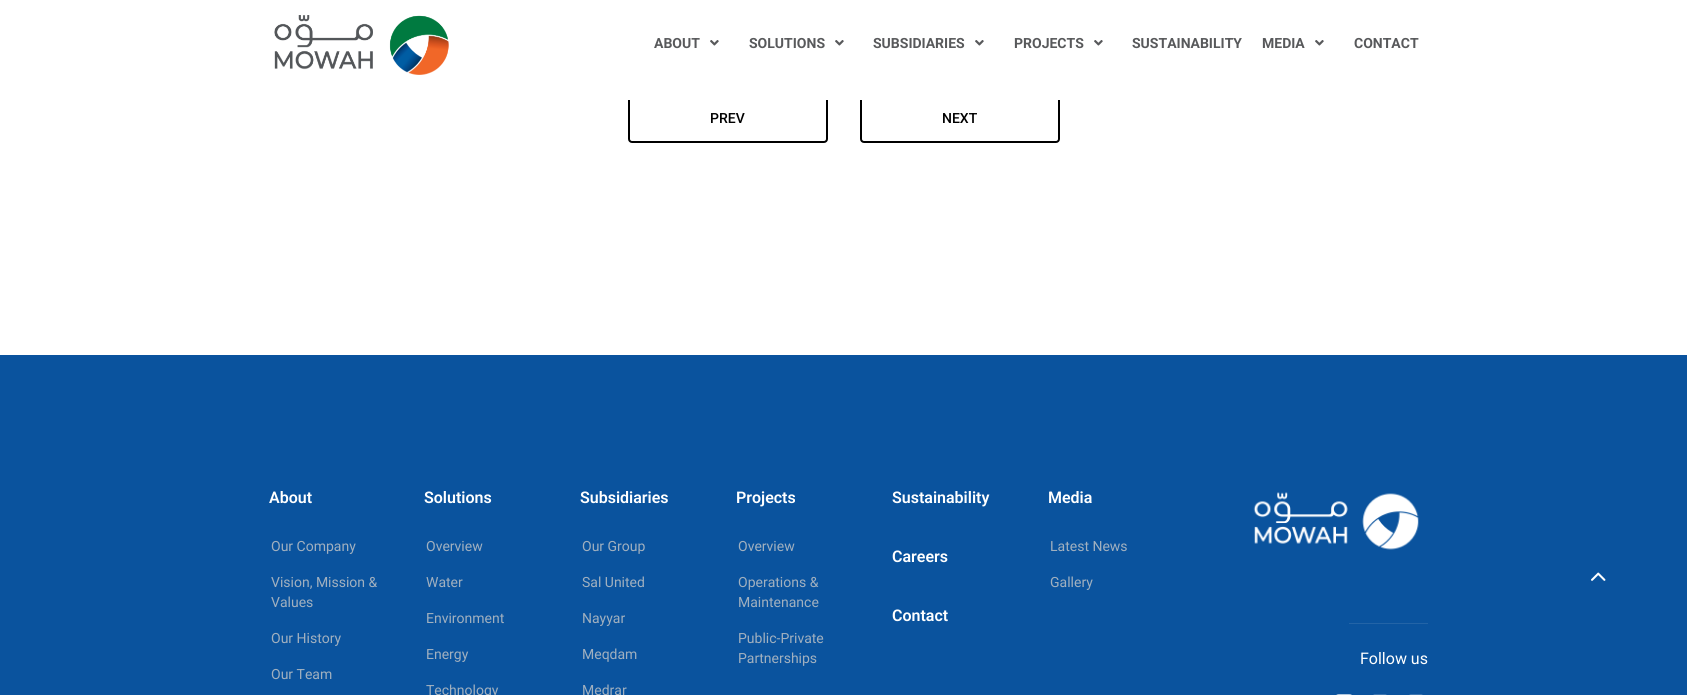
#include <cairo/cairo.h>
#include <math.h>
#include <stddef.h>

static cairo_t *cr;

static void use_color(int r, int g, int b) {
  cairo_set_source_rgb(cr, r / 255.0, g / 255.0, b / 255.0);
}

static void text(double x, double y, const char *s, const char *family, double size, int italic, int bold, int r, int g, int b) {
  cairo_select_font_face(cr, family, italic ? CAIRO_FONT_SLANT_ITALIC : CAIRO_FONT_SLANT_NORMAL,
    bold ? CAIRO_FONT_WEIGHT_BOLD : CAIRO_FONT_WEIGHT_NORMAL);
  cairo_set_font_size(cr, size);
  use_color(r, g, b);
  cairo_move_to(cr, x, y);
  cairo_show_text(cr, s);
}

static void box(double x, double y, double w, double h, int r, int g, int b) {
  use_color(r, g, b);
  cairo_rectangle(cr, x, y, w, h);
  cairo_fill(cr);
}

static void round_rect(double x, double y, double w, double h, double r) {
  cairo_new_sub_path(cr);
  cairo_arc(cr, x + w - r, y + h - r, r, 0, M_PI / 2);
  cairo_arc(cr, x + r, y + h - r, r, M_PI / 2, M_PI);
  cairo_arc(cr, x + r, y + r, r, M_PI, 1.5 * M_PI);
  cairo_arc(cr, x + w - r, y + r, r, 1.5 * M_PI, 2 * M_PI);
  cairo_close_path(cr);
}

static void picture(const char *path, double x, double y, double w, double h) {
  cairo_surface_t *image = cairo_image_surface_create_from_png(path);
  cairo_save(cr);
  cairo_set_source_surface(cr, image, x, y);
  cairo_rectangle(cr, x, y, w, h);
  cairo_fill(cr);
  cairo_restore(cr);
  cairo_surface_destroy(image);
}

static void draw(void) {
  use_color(255, 255, 255);
  cairo_paint(cr);
  round_rect(629, 95, 198, 47, 3);
  use_color(0, 0, 0);
  cairo_stroke(cr);
  round_rect(861, 95, 198, 47, 3);
  cairo_stroke(cr);
  box(628, 94, 432, 6, 255, 255, 255);
  picture("img_01.png", 274, 15, 175, 60);
  picture("img_02.png", 710, 40, 9, 6);
  picture("img_02.png", 835, 40, 9, 6);
  picture("img_02.png", 975, 40, 9, 6);
  picture("img_02.png", 1094, 40, 9, 6);
  picture("img_02.png", 1315, 40, 9, 6);
  box(0, 355, 1687, 340, 10, 83, 158);
  picture("img_03.png", 1253, 492, 166, 58);
  box(1349, 623, 79, 1, 35, 100, 167);
  picture("img_04.png", 1336, 694, 16, 1);
  picture("img_05.png", 1373, 694, 14, 1);
  picture("img_06.png", 1409, 694, 14, 1);
  picture("img_07.png", 1591, 572, 15, 9);
  text(654, 48, "ABOUT", "Roboto", 14, 0, 1, 88, 89, 91);
  text(749, 48, "SOLUTIONS", "Roboto", 14, 0, 1, 88, 89, 91);
  text(873, 48, "SUBSIDIARIES", "Roboto", 14, 0, 1, 88, 89, 91);
  text(1014, 48, "PROJECTS", "Roboto", 14, 0, 1, 88, 89, 91);
  text(1132, 48, "SUSTAINABILITY", "Roboto", 14, 0, 1, 88, 89, 91);
  text(1262, 48, "MEDIA", "Roboto", 14, 0, 1, 88, 89, 91);
  text(1354, 48, "CONTACT", "Roboto", 14, 0, 1, 88, 89, 91);
  text(710, 123, "PREV", "Roboto Medium", 14, 0, 0, 0, 0, 0);
  text(942, 123, "NEXT", "Roboto Medium", 14, 0, 0, 0, 0, 0);
  text(269, 503, "About", "Roboto SemiBold", 16, 0, 0, 255, 255, 255);
  text(271, 551, "Our Company", "Roboto", 14, 0, 0, 161, 176, 191);
  text(271, 587, "Vision, Mission &", "Roboto", 14, 0, 0, 161, 176, 191);
  text(271, 607, "Values", "Roboto", 14, 0, 0, 161, 176, 191);
  text(271, 643, "Our History", "Roboto", 14, 0, 0, 161, 176, 191);
  text(271, 679, "Our Team", "Roboto", 14, 0, 0, 161, 176, 191);
  text(424, 503, "Solutions", "Roboto SemiBold", 16, 0, 0, 255, 255, 255);
  text(426, 551, "Overview", "Roboto", 14, 0, 0, 161, 176, 191);
  text(426, 587, "Water", "Roboto", 14, 0, 0, 161, 176, 191);
  text(426, 623, "Environment", "Roboto", 14, 0, 0, 161, 176, 191);
  text(426, 659, "Energy", "Roboto", 14, 0, 0, 161, 176, 191);
  text(426, 695, "Technology", "Roboto", 14, 0, 0, 161, 176, 191);
  text(580, 503, "Subsidiaries", "Roboto SemiBold", 16, 0, 0, 255, 255, 255);
  text(582, 551, "Our Group", "Roboto", 14, 0, 0, 161, 176, 191);
  text(582, 587, "Sal United", "Roboto", 14, 0, 0, 161, 176, 191);
  text(582, 623, "Nayyar", "Roboto", 14, 0, 0, 161, 176, 191);
  text(582, 659, "Meqdam", "Roboto", 14, 0, 0, 161, 176, 191);
  text(582, 695, "Medrar", "Roboto", 14, 0, 0, 161, 176, 191);
  text(736, 503, "Projects", "Roboto SemiBold", 16, 0, 0, 255, 255, 255);
  text(738, 551, "Overview", "Roboto", 14, 0, 0, 161, 176, 191);
  text(738, 587, "Operations &", "Roboto", 14, 0, 0, 161, 176, 191);
  text(738, 607, "Maintenance", "Roboto", 14, 0, 0, 161, 176, 191);
  text(738, 643, "Public-Private", "Roboto", 14, 0, 0, 161, 176, 191);
  text(738, 663, "Partnerships", "Roboto", 14, 0, 0, 161, 176, 191);
  text(892, 503, "Sustainability", "Roboto SemiBold", 16, 0, 0, 255, 255, 255);
  text(892, 562, "Careers", "Roboto SemiBold", 16, 0, 0, 255, 255, 255);
  text(892, 621, "Contact", "Roboto SemiBold", 16, 0, 0, 255, 255, 255);
  text(1048, 503, "Media", "Roboto SemiBold", 16, 0, 0, 255, 255, 255);
  text(1050, 551, "Latest News", "Roboto", 14, 0, 0, 161, 176, 191);
  text(1050, 587, "Gallery", "Roboto", 14, 0, 0, 161, 176, 191);
  text(1360, 664, "Follow us", "Roboto", 16, 0, 0, 255, 255, 255);
}

int main(void) {
  cairo_surface_t *surface = cairo_image_surface_create(CAIRO_FORMAT_RGB24, 1687, 695);
  cr = cairo_create(surface);
  cairo_font_options_t *options = cairo_font_options_create();
  cairo_font_options_set_hint_metrics(options, CAIRO_HINT_METRICS_OFF);
  cairo_font_options_set_hint_style(options, CAIRO_HINT_STYLE_NONE);
  cairo_set_font_options(cr, options);
  cairo_set_miter_limit(cr, 4);
  draw();
  cairo_surface_write_to_png(surface, "out.png");
  cairo_font_options_destroy(options);
  cairo_destroy(cr);
  cairo_surface_destroy(surface);
  return 0;
}
